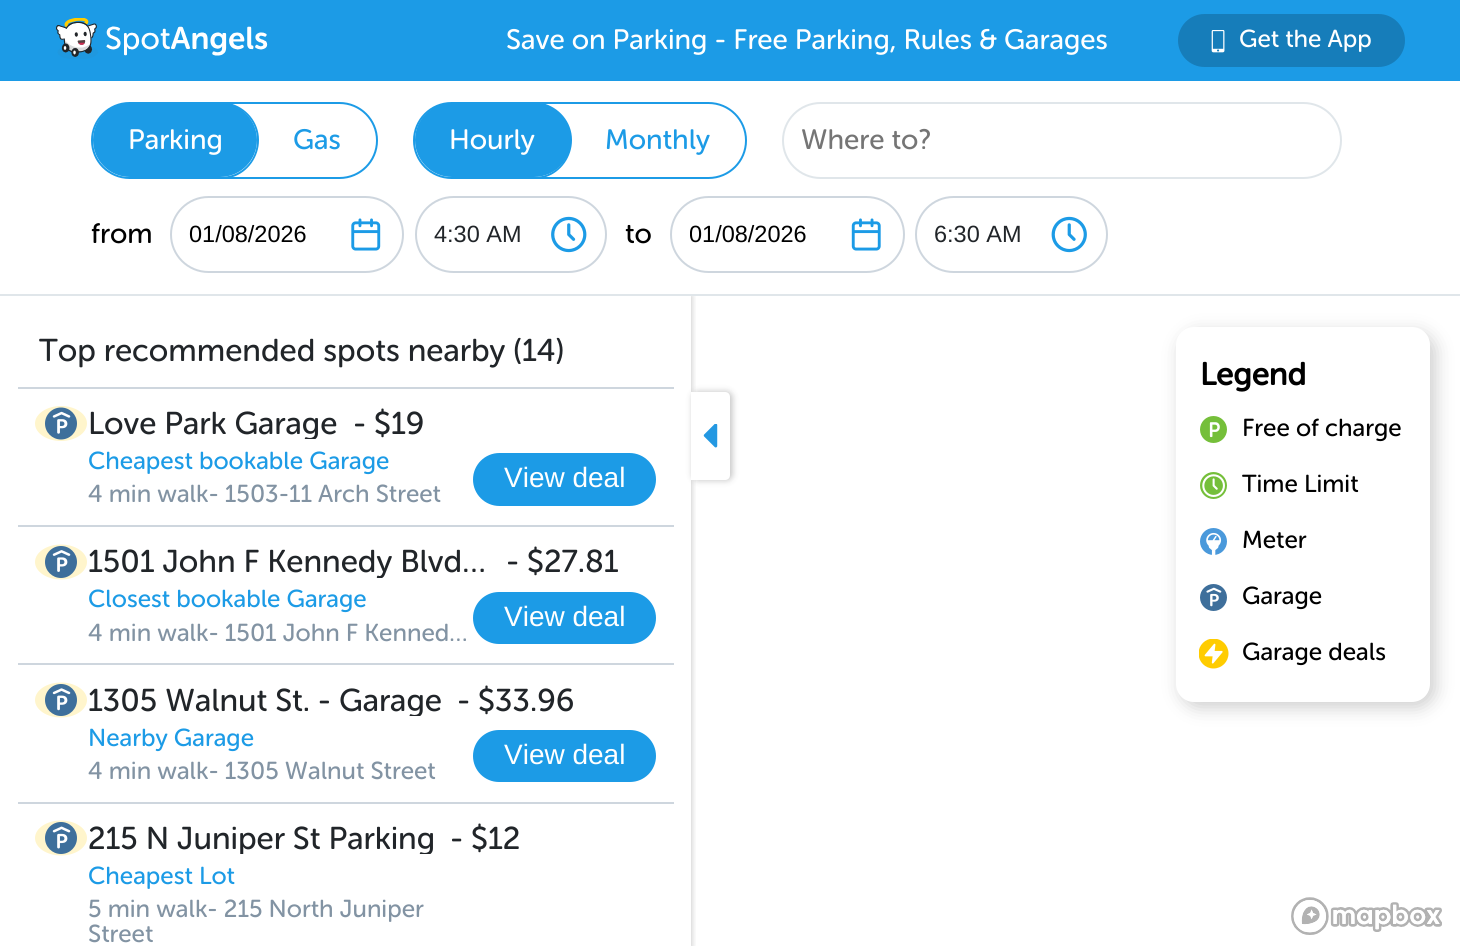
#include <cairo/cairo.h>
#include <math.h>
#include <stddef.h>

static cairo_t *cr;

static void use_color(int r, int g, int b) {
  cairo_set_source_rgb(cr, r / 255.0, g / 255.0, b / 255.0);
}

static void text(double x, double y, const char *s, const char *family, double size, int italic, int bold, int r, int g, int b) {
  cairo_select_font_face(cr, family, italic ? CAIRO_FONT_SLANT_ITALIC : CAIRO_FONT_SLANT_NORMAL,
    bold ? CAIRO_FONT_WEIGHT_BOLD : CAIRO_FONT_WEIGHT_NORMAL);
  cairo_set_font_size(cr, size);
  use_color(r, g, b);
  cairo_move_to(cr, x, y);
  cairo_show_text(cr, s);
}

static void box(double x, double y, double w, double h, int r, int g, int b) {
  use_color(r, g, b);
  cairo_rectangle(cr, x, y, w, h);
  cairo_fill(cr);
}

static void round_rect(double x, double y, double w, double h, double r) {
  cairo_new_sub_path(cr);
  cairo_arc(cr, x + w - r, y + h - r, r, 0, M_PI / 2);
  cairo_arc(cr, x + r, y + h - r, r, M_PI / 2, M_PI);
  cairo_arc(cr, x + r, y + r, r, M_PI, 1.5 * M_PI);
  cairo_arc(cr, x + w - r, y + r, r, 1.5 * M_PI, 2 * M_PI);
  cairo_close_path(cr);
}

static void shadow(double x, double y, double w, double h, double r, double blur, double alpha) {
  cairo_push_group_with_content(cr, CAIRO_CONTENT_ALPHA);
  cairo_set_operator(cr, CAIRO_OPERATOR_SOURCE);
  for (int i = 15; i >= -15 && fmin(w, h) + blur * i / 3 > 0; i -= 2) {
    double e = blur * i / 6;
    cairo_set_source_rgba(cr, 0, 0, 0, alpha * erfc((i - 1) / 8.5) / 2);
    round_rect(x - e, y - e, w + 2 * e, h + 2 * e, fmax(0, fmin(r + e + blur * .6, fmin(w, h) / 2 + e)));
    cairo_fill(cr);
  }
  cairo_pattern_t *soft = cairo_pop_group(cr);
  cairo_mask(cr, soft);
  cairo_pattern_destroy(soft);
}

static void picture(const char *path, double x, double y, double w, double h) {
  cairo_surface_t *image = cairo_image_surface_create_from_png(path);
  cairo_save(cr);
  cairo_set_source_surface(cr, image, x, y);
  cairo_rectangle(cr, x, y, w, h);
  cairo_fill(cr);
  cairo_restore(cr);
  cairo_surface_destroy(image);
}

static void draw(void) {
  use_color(255, 255, 255);
  cairo_paint(cr);
  box(0, 0, 1460, 81, 28, 155, 230);
  picture("img_01.png", 56, 18, 212, 41);
  use_color(22, 125, 186);
  round_rect(1178, 14, 227, 53, 26.5);
  cairo_fill(cr);
  picture("img_02.png", 1211, 30, 14, 23);
  cairo_save(cr);
  cairo_rectangle(cr, 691, 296, 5, 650);
  cairo_clip(cr);
  use_color(0, 0, 0);
  shadow(0, 296, 691, 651, 0, 3.5, 0.25);
  cairo_restore(cr);
  box(0, 290, 694, 4, 255, 255, 255);
  box(0, 294, 1460, 2, 224, 230, 234);
  round_rect(92, 103, 285, 75, 37.5);
  use_color(28, 155, 230);
  cairo_stroke(cr);
  cairo_new_path(cr);
  cairo_move_to(cr, 130, 104);
  cairo_curve_to(cr, 109, 104, 93, 120, 93, 140);
  cairo_curve_to(cr, 93, 120, 110, 103, 130, 103);
  cairo_line_to(cr, 229, 103);
  cairo_curve_to(cr, 246, 107, 259, 122, 259, 140);
  cairo_curve_to(cr, 259, 157, 248, 172, 233, 177);
  cairo_line_to(cr, 220, 177);
  cairo_curve_to(cr, 241, 177, 257, 161, 257, 140);
  cairo_curve_to(cr, 257, 120, 241, 104, 220, 104);
  cairo_close_path(cr);
  cairo_fill(cr);
  round_rect(93, 103, 164, 74, 37);
  cairo_fill(cr);
  round_rect(414, 103, 332, 75, 37.5);
  cairo_stroke(cr);
  cairo_new_path(cr);
  cairo_move_to(cr, 452, 104);
  cairo_curve_to(cr, 431, 104, 415, 120, 415, 140);
  cairo_curve_to(cr, 415, 120, 432, 103, 452, 103);
  cairo_line_to(cr, 542, 103);
  cairo_curve_to(cr, 559, 107, 572, 122, 572, 140);
  cairo_curve_to(cr, 572, 157, 561, 172, 546, 177);
  cairo_line_to(cr, 534, 177);
  cairo_curve_to(cr, 554, 177, 570, 161, 570, 140);
  cairo_curve_to(cr, 570, 120, 554, 104, 534, 104);
  cairo_close_path(cr);
  cairo_fill(cr);
  round_rect(415, 103, 156, 74, 37);
  cairo_fill(cr);
  round_rect(783, 103, 558, 75, 37.5);
  use_color(224, 230, 234);
  cairo_stroke(cr);
  picture("img_03.png", 351, 218, 30, 33);
  round_rect(171, 197, 232, 75, 37.5);
  use_color(206, 214, 222);
  cairo_stroke(cr);
  picture("img_04.png", 551, 216, 36, 37);
  round_rect(416, 197, 190, 75, 37.5);
  cairo_stroke(cr);
  picture("img_05.png", 851, 218, 30, 33);
  round_rect(671, 197, 233, 75, 37.5);
  cairo_stroke(cr);
  picture("img_06.png", 1051, 216, 36, 37);
  round_rect(916, 197, 191, 75, 37.5);
  cairo_stroke(cr);
  box(18, 387, 656, 2, 206, 214, 222);
  box(18, 525, 656, 2, 206, 214, 222);
  use_color(255, 245, 204);
  cairo_new_path(cr);
  cairo_move_to(cr, 61, 406);
  cairo_curve_to(cr, 75.5, 406, 87, 414, 87, 423.5);
  cairo_curve_to(cr, 87, 433, 75.5, 441, 61, 441);
  cairo_curve_to(cr, 46.5, 441, 35, 433, 35, 423.5);
  cairo_curve_to(cr, 35, 414, 46.5, 406, 61, 406);
  cairo_close_path(cr);
  cairo_fill(cr);
  picture("img_07.png", 45, 407, 32, 33);
  use_color(28, 155, 230);
  round_rect(474, 454, 181, 51, 25.5);
  cairo_fill_preserve(cr);
  cairo_stroke(cr);
  box(18, 663, 656, 2, 206, 214, 222);
  use_color(255, 245, 204);
  cairo_new_path(cr);
  cairo_move_to(cr, 61, 544.5);
  cairo_curve_to(cr, 75.5, 544.5, 87, 552.5, 87, 562);
  cairo_curve_to(cr, 87, 571.5, 75.5, 579.5, 61, 579.5);
  cairo_curve_to(cr, 46.5, 579.5, 35, 571.5, 35, 562);
  cairo_curve_to(cr, 35, 552.5, 46.5, 544.5, 61, 544.5);
  cairo_close_path(cr);
  cairo_fill(cr);
  picture("img_08.png", 45, 546, 32, 32);
  use_color(28, 155, 230);
  round_rect(474, 593, 181, 50, 25);
  cairo_fill_preserve(cr);
  cairo_stroke(cr);
  box(18, 802, 656, 2, 206, 214, 222);
  use_color(255, 245, 204);
  cairo_new_path(cr);
  cairo_move_to(cr, 61, 682.5);
  cairo_curve_to(cr, 75.5, 682.5, 87, 690.5, 87, 700);
  cairo_curve_to(cr, 87, 709.5, 75.5, 717.5, 61, 717.5);
  cairo_curve_to(cr, 46.5, 717.5, 35, 709.5, 35, 700);
  cairo_curve_to(cr, 35, 690.5, 46.5, 682.5, 61, 682.5);
  cairo_close_path(cr);
  cairo_fill(cr);
  picture("img_09.png", 45, 684, 32, 32);
  use_color(28, 155, 230);
  round_rect(474, 731, 181, 50, 25);
  cairo_fill_preserve(cr);
  cairo_stroke(cr);
  use_color(255, 245, 204);
  cairo_new_path(cr);
  cairo_move_to(cr, 61, 820.5);
  cairo_curve_to(cr, 75.5, 820.5, 87, 828.5, 87, 838);
  cairo_curve_to(cr, 87, 847.5, 75.5, 855.5, 61, 855.5);
  cairo_curve_to(cr, 46.5, 855.5, 35, 847.5, 35, 838);
  cairo_curve_to(cr, 35, 828.5, 46.5, 820.5, 61, 820.5);
  cairo_close_path(cr);
  cairo_fill(cr);
  picture("img_10.png", 45, 822, 32, 32);
  use_color(0, 0, 0);
  shadow(693, 392, 39, 88, 5, 3.5, 0.25);
  use_color(255, 255, 255);
  cairo_new_path(cr);
  cairo_move_to(cr, 691, 392);
  cairo_line_to(cr, 725, 392);
  cairo_curve_to(cr, 728, 392, 730, 394, 730, 397);
  cairo_line_to(cr, 730, 475);
  cairo_curve_to(cr, 730, 478, 728, 480, 725, 480);
  cairo_line_to(cr, 691, 480);
  cairo_close_path(cr);
  cairo_fill(cr);
  picture("img_11.png", 703, 424, 15, 24);
  use_color(204, 204, 204);
  shadow(1181, 333, 254, 374, 18, 9, 1);
  use_color(255, 255, 255);
  round_rect(1176, 327, 254, 375, 18);
  cairo_fill(cr);
  picture("img_12.png", 1200, 416, 27, 27);
  picture("img_13.png", 1200, 472, 27, 27);
  picture("img_14.png", 1200, 528, 27, 27);
  picture("img_15.png", 1200, 584, 27, 27);
  picture("img_16.png", 1199, 639, 30, 30);
  picture("img_17.png", 1291, 897, 151, 38);
  text(506, 49, "Save on Parking - Free Parking, Rules & Garages", "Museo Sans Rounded", 28, 0, 0, 255, 255, 255);
  text(1239, 47, "Get the App", "Museo Sans Rounded", 24.5, 0, 0, 255, 255, 255);
  text(128, 149, "Parking", "Museo Sans Rounded", 28, 0, 0, 255, 255, 255);
  text(293, 149, "Gas", "Museo Sans Rounded", 28, 0, 0, 28, 155, 230);
  text(449, 149, "Hourly", "Museo Sans Rounded", 28, 0, 0, 255, 255, 255);
  text(605, 149, "Monthly", "Museo Sans Rounded", 28, 0, 0, 28, 155, 230);
  text(801, 149, "Where to?", "Museo Sans Rounded", 28, 0, 0, 117, 117, 117);
  text(91, 243, "from", "Museo Sans Rounded", 28, 0, 0, 0, 0, 0);
  text(189, 242, "01/08/2026", "Liberation Sans", 23.5, 0, 0, 0, 0, 0);
  text(434, 242, "4:30 AM", "Liberation Sans", 23.5, 0, 0, 33, 37, 41);
  text(625, 243, "to", "Museo Sans Rounded", 28, 0, 0, 0, 0, 0);
  cairo_save(cr);
  cairo_rectangle(cr, 690, 222, 210, 27);
  cairo_clip(cr);
  text(689, 242, "01/08/2026", "Liberation Sans", 23.5, 0, 0, 0, 0, 0);
  cairo_restore(cr);
  text(934, 242, "6:30 AM", "Liberation Sans", 23.5, 0, 0, 33, 37, 41);
  text(39, 361, "Top recommended spots nearby (14)", "Museo Sans Rounded", 31.5, 0, 0, 33, 37, 41);
  cairo_save(cr);
  cairo_rectangle(cr, 88, 408, 250, 31);
  cairo_clip(cr);
  text(88, 434, "Love Park Garage", "Museo Sans Rounded", 31.5, 0, 0, 33, 37, 41);
  cairo_restore(cr);
  text(353, 434, "- $19", "Museo Sans Rounded", 31.5, 0, 0, 33, 37, 41);
  text(88, 469, "Cheapest bookable Garage", "Museo Sans Rounded", 24.5, 0, 0, 28, 155, 230);
  text(504, 487, "View deal", "Liberation Sans", 28, 0, 0, 255, 255, 255);
  text(88, 502, "4 min walk- 1503-11 Arch Street", "Museo Sans Rounded", 24.5, 0, 0, 130, 147, 163);
  cairo_save(cr);
  cairo_rectangle(cr, 88, 546, 402, 32);
  cairo_clip(cr);
  text(88, 572, "1501 John F Kennedy Blvd…", "Museo Sans Rounded", 31.5, 0, 0, 33, 37, 41);
  cairo_restore(cr);
  text(506, 572, "- $27.81", "Museo Sans Rounded", 31.5, 0, 0, 33, 37, 41);
  text(88, 607, "Closest bookable Garage", "Museo Sans Rounded", 24.5, 0, 0, 28, 155, 230);
  text(504, 626, "View deal", "Liberation Sans", 28, 0, 0, 255, 255, 255);
  text(88, 641, "4 min walk- 1501 John F Kenned…", "Museo Sans Rounded", 24.5, 0, 0, 130, 147, 163);
  cairo_save(cr);
  cairo_rectangle(cr, 88, 684, 353, 32);
  cairo_clip(cr);
  text(88, 711, "1305 Walnut St. - Garage", "Museo Sans Rounded", 31.5, 0, 0, 33, 37, 41);
  cairo_restore(cr);
  text(457, 711, "- $33.96", "Museo Sans Rounded", 31.5, 0, 0, 33, 37, 41);
  text(88, 746, "Nearby Garage", "Museo Sans Rounded", 24.5, 0, 0, 28, 155, 230);
  text(504, 764, "View deal", "Liberation Sans", 28, 0, 0, 255, 255, 255);
  text(88, 779, "4 min walk- 1305 Walnut Street", "Museo Sans Rounded", 24.5, 0, 0, 130, 147, 163);
  cairo_save(cr);
  cairo_rectangle(cr, 88, 823, 346, 31);
  cairo_clip(cr);
  text(88, 849, "215 N Juniper St Parking", "Museo Sans Rounded", 31.5, 0, 0, 33, 37, 41);
  cairo_restore(cr);
  text(450, 849, "- $12", "Museo Sans Rounded", 31.5, 0, 0, 33, 37, 41);
  text(88, 884, "Cheapest Lot", "Museo Sans Rounded", 24.5, 0, 0, 28, 155, 230);
  text(88, 917, "5 min walk- 215 North Juniper", "Museo Sans Rounded", 24.5, 0, 0, 130, 147, 163);
  text(88, 942, "Street", "Museo Sans Rounded", 24.5, 0, 0, 130, 147, 163);
  text(1200, 385, "Legend", "Museo Sans Rounded", 31.5, 0, 1, 0, 0, 0);
  text(1242, 436, "Free of charge", "Museo Sans Rounded", 24.5, 0, 0, 0, 0, 0);
  text(1242, 492, "Time Limit", "Museo Sans Rounded", 24.5, 0, 0, 0, 0, 0);
  text(1242, 548, "Meter", "Museo Sans Rounded", 24.5, 0, 0, 0, 0, 0);
  text(1242, 604, "Garage", "Museo Sans Rounded", 24.5, 0, 0, 0, 0, 0);
  text(1242, 660, "Garage deals", "Museo Sans Rounded", 24.5, 0, 0, 0, 0, 0);
}

int main(void) {
  cairo_surface_t *surface = cairo_image_surface_create(CAIRO_FORMAT_RGB24, 1460, 946);
  cr = cairo_create(surface);
  cairo_font_options_t *options = cairo_font_options_create();
  cairo_font_options_set_hint_metrics(options, CAIRO_HINT_METRICS_OFF);
  cairo_font_options_set_hint_style(options, CAIRO_HINT_STYLE_NONE);
  cairo_set_font_options(cr, options);
  cairo_set_miter_limit(cr, 4);
  draw();
  cairo_surface_write_to_png(surface, "out.png");
  cairo_font_options_destroy(options);
  cairo_destroy(cr);
  cairo_surface_destroy(surface);
  return 0;
}
